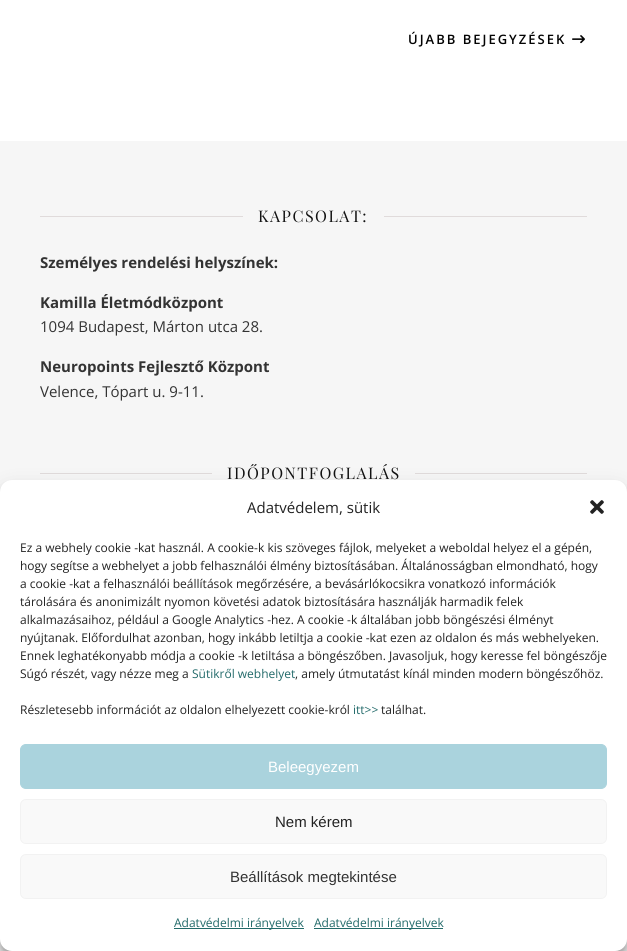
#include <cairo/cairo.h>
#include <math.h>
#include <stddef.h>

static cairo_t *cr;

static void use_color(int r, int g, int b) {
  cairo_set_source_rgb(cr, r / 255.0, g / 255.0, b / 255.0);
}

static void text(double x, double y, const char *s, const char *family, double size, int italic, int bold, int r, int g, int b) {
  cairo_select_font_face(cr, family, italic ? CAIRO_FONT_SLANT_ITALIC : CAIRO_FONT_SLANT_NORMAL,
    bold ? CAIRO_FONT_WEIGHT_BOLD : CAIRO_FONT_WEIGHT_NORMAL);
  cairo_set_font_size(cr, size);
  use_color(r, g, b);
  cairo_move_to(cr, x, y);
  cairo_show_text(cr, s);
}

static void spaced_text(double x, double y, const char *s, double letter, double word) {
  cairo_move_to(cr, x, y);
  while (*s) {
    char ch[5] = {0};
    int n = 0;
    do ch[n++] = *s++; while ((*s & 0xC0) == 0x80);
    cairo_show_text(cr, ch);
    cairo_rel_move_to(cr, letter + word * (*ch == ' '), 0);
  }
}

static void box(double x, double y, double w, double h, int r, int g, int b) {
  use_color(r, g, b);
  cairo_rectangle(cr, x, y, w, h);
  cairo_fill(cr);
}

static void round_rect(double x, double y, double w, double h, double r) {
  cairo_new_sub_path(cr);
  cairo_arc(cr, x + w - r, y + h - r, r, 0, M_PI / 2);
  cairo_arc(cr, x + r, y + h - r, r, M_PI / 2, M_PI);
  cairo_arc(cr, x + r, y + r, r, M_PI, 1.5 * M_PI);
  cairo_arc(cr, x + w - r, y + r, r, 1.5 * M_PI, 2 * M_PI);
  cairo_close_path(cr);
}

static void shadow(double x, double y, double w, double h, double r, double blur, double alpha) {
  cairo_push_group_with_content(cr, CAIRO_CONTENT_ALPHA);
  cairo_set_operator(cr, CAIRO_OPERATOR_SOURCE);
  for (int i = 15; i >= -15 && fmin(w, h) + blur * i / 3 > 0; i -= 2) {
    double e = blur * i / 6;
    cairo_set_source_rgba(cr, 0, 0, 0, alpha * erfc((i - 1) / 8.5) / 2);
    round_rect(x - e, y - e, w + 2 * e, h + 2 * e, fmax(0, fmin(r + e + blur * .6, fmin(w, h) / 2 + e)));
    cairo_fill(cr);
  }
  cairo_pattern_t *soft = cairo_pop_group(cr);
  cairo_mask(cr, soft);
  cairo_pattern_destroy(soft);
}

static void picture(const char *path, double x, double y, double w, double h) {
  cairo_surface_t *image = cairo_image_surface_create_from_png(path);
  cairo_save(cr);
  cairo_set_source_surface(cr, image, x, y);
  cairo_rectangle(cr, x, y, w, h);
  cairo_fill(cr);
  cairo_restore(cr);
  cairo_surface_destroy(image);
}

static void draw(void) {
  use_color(255, 255, 255);
  cairo_paint(cr);
  picture("img_01.png", 572, 35, 13, 9);
  box(0, 141, 627, 810, 246, 246, 246);
  box(40, 216, 203, 1, 224, 219, 219);
  box(384, 216, 203, 1, 224, 219, 219);
  box(40, 473, 172, 1, 224, 219, 219);
  box(415, 473, 172, 1, 224, 219, 219);
  use_color(0, 0, 0);
  shadow(0, 486, 627, 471, 12, 3, 0.23);
  shadow(0, 490, 627, 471, 12, 10, 0.19);
  use_color(255, 255, 255);
  round_rect(0, 480, 627, 471, 12);
  cairo_fill(cr);
  picture("img_02.png", 590, 500, 14, 14);
  use_color(170, 211, 221);
  round_rect(20.5, 744.5, 586, 44, 5.5);
  cairo_fill_preserve(cr);
  cairo_set_line_width(cr, 1);
  cairo_stroke(cr);
  use_color(249, 249, 249);
  round_rect(20.5, 799.5, 586, 44, 5.5);
  cairo_fill_preserve(cr);
  use_color(242, 242, 242);
  cairo_stroke(cr);
  use_color(249, 249, 249);
  round_rect(20.5, 854.5, 586, 44, 5.5);
  cairo_fill_preserve(cr);
  use_color(242, 242, 242);
  cairo_stroke(cr);
  box(174, 928, 130, 1, 34, 106, 106);
  box(314, 928, 129, 1, 34, 106, 106);
  cairo_select_font_face(cr, "Open Sans SemiBold", CAIRO_FONT_SLANT_NORMAL, CAIRO_FONT_WEIGHT_NORMAL);
  cairo_set_font_size(cr, 13);
  use_color(3, 3, 3);
  spaced_text(408, 44, "ÚJABB BEJEGYZÉSEK", 2, 0);
  cairo_select_font_face(cr, "Playfair Display", CAIRO_FONT_SLANT_NORMAL, CAIRO_FONT_WEIGHT_NORMAL);
  cairo_set_font_size(cr, 16);
  use_color(17, 17, 17);
  spaced_text(258, 222, "KAPCSOLAT:", 1.5, 0);
  text(40, 268, "Személyes rendelési helyszínek:", "Open Sans", 15, 0, 1, 51, 51, 51);
  text(40, 308, "Kamilla Életmódközpont", "Open Sans", 15, 0, 1, 51, 51, 51);
  text(40, 332, "1094 Budapest, Márton utca 28.", "Open Sans", 15, 0, 0, 51, 51, 51);
  text(40, 372, "Neuropoints Fejlesztő Központ", "Open Sans", 15, 0, 1, 51, 51, 51);
  text(40, 397, "Velence, Tópart u. 9-11.", "Open Sans", 15, 0, 0, 51, 51, 51);
  cairo_select_font_face(cr, "Playfair Display", CAIRO_FONT_SLANT_NORMAL, CAIRO_FONT_WEIGHT_NORMAL);
  cairo_set_font_size(cr, 16);
  use_color(17, 17, 17);
  spaced_text(227, 479, "IDŐPONTFOGLALÁS", 1.5, 0);
  text(247, 513, "Adatvédelem, sütik", "Open Sans", 15, 0, 0, 34, 34, 34);
  text(20, 552, "Ez a webhely cookie -kat használ. A cookie-k kis szöveges fájlok, melyeket a weboldal helyez el a gépén,", "Open Sans", 12, 0, 0, 34, 34, 34);
  text(20, 570, "hogy segítse a webhelyet a jobb felhasználói élmény biztosításában. Általánosságban elmondható, hogy", "Open Sans", 12, 0, 0, 34, 34, 34);
  text(20, 588, "a cookie -kat a felhasználói beállítások megőrzésére, a bevásárlókocsikra vonatkozó információk", "Open Sans", 12, 0, 0, 34, 34, 34);
  text(20, 606, "tárolására és anonimizált nyomon követési adatok biztosítására használják harmadik felek", "Open Sans", 12, 0, 0, 34, 34, 34);
  text(20, 624, "alkalmazásaihoz, például a Google Analytics -hez. A cookie -k általában jobb böngészési élményt", "Open Sans", 12, 0, 0, 34, 34, 34);
  text(20, 642, "nyújtanak. Előfordulhat azonban, hogy inkább letiltja a cookie -kat ezen az oldalon és más webhelyeken.", "Open Sans", 12, 0, 0, 34, 34, 34);
  text(20, 660, "Ennek leghatékonyabb módja a cookie -k letiltása a böngészőben. Javasoljuk, hogy keresse fel böngészője", "Open Sans", 12, 0, 0, 34, 34, 34);
  text(20, 678, "Súgó részét, vagy nézze meg a", "Open Sans", 12, 0, 0, 34, 34, 34);
  text(192, 678, "Sütikről webhelyet", "Open Sans", 12, 0, 0, 34, 106, 106);
  text(295, 678, ", amely útmutatást kínál minden modern böngészőhöz.", "Open Sans", 12, 0, 0, 34, 34, 34);
  text(20, 714, "Részletesebb információt az oldalon elhelyezett cookie-król", "Open Sans", 12, 0, 0, 34, 34, 34);
  text(353, 714, "itt>>", "Open Sans", 12, 0, 0, 34, 106, 106);
  text(381, 714, "találhat.", "Open Sans", 12, 0, 0, 34, 34, 34);
  text(268, 772, "Beleegyezem", "Liberation Sans", 15, 0, 0, 255, 255, 255);
  text(275, 827, "Nem kérem", "Liberation Sans", 15, 0, 0, 34, 34, 34);
  text(230, 882, "Beállítások megtekintése", "Liberation Sans", 15, 0, 0, 51, 51, 51);
  text(174, 927, "Adatvédelmi irányelvek", "Open Sans", 12, 0, 0, 34, 106, 106);
  text(314, 927, "Adatvédelmi irányelvek", "Open Sans", 12, 0, 0, 34, 106, 106);
}

int main(void) {
  cairo_surface_t *surface = cairo_image_surface_create(CAIRO_FORMAT_RGB24, 627, 951);
  cr = cairo_create(surface);
  cairo_font_options_t *options = cairo_font_options_create();
  cairo_font_options_set_hint_metrics(options, CAIRO_HINT_METRICS_OFF);
  cairo_font_options_set_hint_style(options, CAIRO_HINT_STYLE_NONE);
  cairo_set_font_options(cr, options);
  cairo_set_miter_limit(cr, 4);
  draw();
  cairo_surface_write_to_png(surface, "out.png");
  cairo_font_options_destroy(options);
  cairo_destroy(cr);
  cairo_surface_destroy(surface);
  return 0;
}
